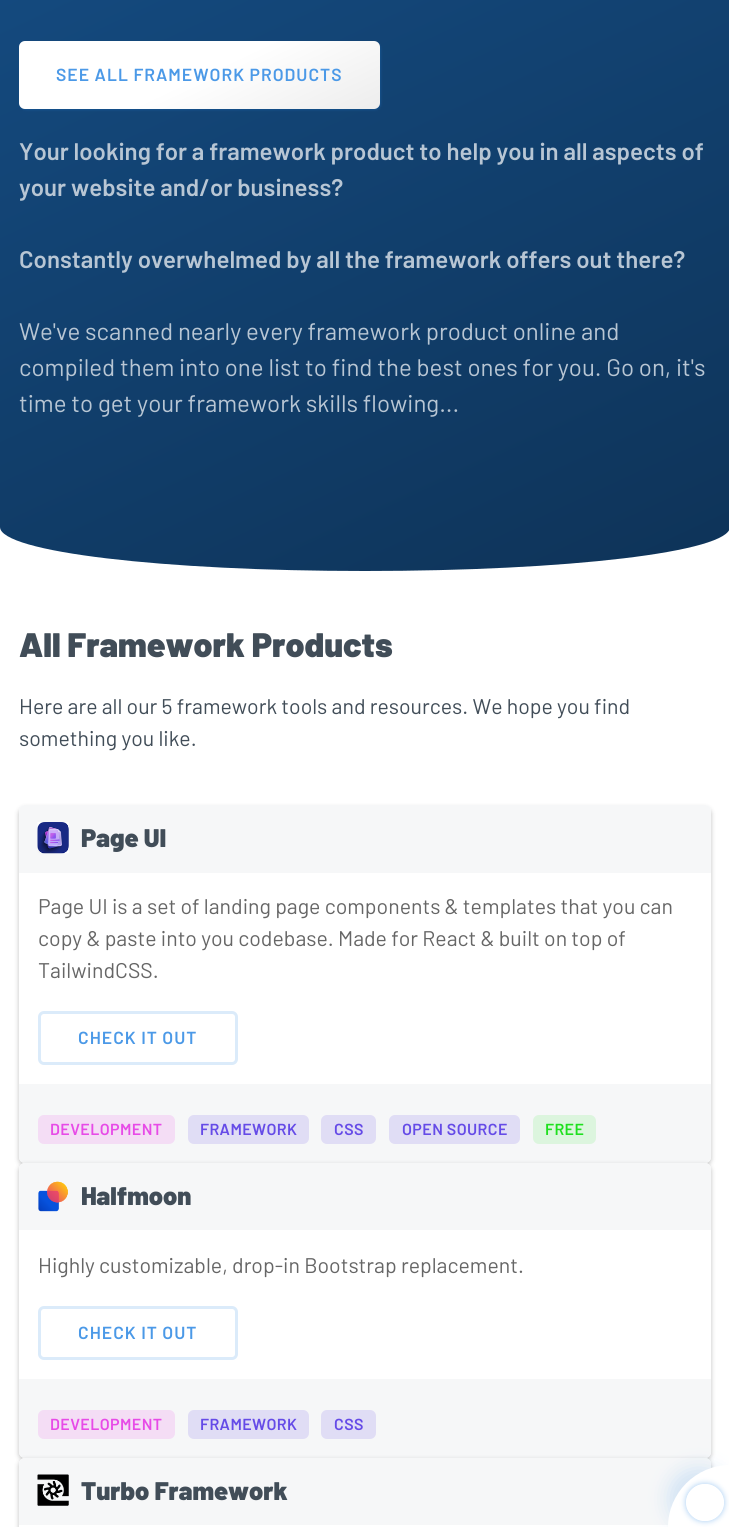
#include <cairo/cairo.h>
#include <math.h>
#include <stddef.h>

static cairo_t *cr;

static void use_color(int r, int g, int b) {
  cairo_set_source_rgb(cr, r / 255.0, g / 255.0, b / 255.0);
}

static void text(double x, double y, const char *s, const char *family, double size, int italic, int bold, int r, int g, int b) {
  cairo_select_font_face(cr, family, italic ? CAIRO_FONT_SLANT_ITALIC : CAIRO_FONT_SLANT_NORMAL,
    bold ? CAIRO_FONT_WEIGHT_BOLD : CAIRO_FONT_WEIGHT_NORMAL);
  cairo_set_font_size(cr, size);
  use_color(r, g, b);
  cairo_move_to(cr, x, y);
  cairo_show_text(cr, s);
}

static void spaced_text(double x, double y, const char *s, double letter, double word) {
  cairo_move_to(cr, x, y);
  while (*s) {
    char ch[5] = {0};
    int n = 0;
    do ch[n++] = *s++; while ((*s & 0xC0) == 0x80);
    cairo_show_text(cr, ch);
    cairo_rel_move_to(cr, letter + word * (*ch == ' '), 0);
  }
}

static void round_rect(double x, double y, double w, double h, double r) {
  cairo_new_sub_path(cr);
  cairo_arc(cr, x + w - r, y + h - r, r, 0, M_PI / 2);
  cairo_arc(cr, x + r, y + h - r, r, M_PI / 2, M_PI);
  cairo_arc(cr, x + r, y + r, r, M_PI, 1.5 * M_PI);
  cairo_arc(cr, x + w - r, y + r, r, 1.5 * M_PI, 2 * M_PI);
  cairo_close_path(cr);
}

static void shadow(double x, double y, double w, double h, double r, double blur, double alpha) {
  cairo_push_group_with_content(cr, CAIRO_CONTENT_ALPHA);
  cairo_set_operator(cr, CAIRO_OPERATOR_SOURCE);
  for (int i = 15; i >= -15 && fmin(w, h) + blur * i / 3 > 0; i -= 2) {
    double e = blur * i / 6;
    cairo_set_source_rgba(cr, 0, 0, 0, alpha * erfc((i - 1) / 8.5) / 2);
    round_rect(x - e, y - e, w + 2 * e, h + 2 * e, fmax(0, fmin(r + e + blur * .6, fmin(w, h) / 2 + e)));
    cairo_fill(cr);
  }
  cairo_pattern_t *soft = cairo_pop_group(cr);
  cairo_mask(cr, soft);
  cairo_pattern_destroy(soft);
}

static void picture(const char *path, double x, double y, double w, double h) {
  cairo_surface_t *image = cairo_image_surface_create_from_png(path);
  cairo_save(cr);
  cairo_set_source_surface(cr, image, x, y);
  cairo_rectangle(cr, x, y, w, h);
  cairo_fill(cr);
  cairo_restore(cr);
  cairo_surface_destroy(image);
}

static void draw(void) {
  cairo_pattern_t *gradient;
  use_color(255, 255, 255);
  cairo_paint(cr);
  gradient = cairo_pattern_create_linear(162, -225, 568, 647);
  cairo_pattern_add_color_stop_rgba(gradient, 0, 0.082, 0.302, 0.518, 1);
  cairo_pattern_add_color_stop_rgba(gradient, 1, 0.055, 0.2, 0.345, 1);
  cairo_set_source(cr, gradient);
  cairo_pattern_destroy(gradient);
  cairo_new_path(cr);
  cairo_move_to(cr, 0, -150);
  cairo_line_to(cr, 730, -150);
  cairo_line_to(cr, 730, 527);
  cairo_curve_to(cr, 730, 552, 567, 571, 365, 571);
  cairo_curve_to(cr, 163, 571, 0, 552, 0, 527);
  cairo_close_path(cr);
  cairo_fill(cr);
  use_color(30, 135, 240);
  shadow(20, 43, 361, 67, 6, 1, 0.2);
  gradient = cairo_pattern_create_linear(154, -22, 245, 172);
  cairo_pattern_add_color_stop_rgba(gradient, 0, 1, 1, 1, 1);
  cairo_pattern_add_color_stop_rgba(gradient, 0.5, 1, 1, 1, 1);
  cairo_pattern_add_color_stop_rgba(gradient, 1, 0.929, 0.929, 0.929, 1);
  cairo_set_source(cr, gradient);
  cairo_pattern_destroy(gradient);
  round_rect(19, 41, 361, 68, 6);
  cairo_fill(cr);
  use_color(0, 0, 0);
  shadow(19, 808, 692, 357, 6, 2.5, 0.25);
  use_color(255, 255, 255);
  round_rect(19, 805, 692, 358, 6);
  cairo_fill(cr);
  use_color(246, 247, 248);
  cairo_new_path(cr);
  cairo_move_to(cr, 25, 805);
  cairo_line_to(cr, 705, 805);
  cairo_curve_to(cr, 708.5, 805, 711, 807.5, 711, 811);
  cairo_line_to(cr, 711, 873);
  cairo_line_to(cr, 19, 873);
  cairo_line_to(cr, 19, 811);
  cairo_curve_to(cr, 19, 807.5, 21.5, 805, 25, 805);
  cairo_close_path(cr);
  cairo_fill(cr);
  picture("img_01.png", 37, 822, 32, 32);
  round_rect(39.5, 1012.5, 197, 51, 4.5);
  use_color(219, 235, 250);
  cairo_set_line_width(cr, 3);
  cairo_stroke(cr);
  use_color(246, 247, 248);
  cairo_new_path(cr);
  cairo_move_to(cr, 19, 1084);
  cairo_line_to(cr, 711, 1084);
  cairo_line_to(cr, 711, 1157);
  cairo_curve_to(cr, 711, 1160.5, 708.5, 1163, 705, 1163);
  cairo_line_to(cr, 25, 1163);
  cairo_curve_to(cr, 21.5, 1163, 19, 1160.5, 19, 1157);
  cairo_close_path(cr);
  cairo_fill(cr);
  use_color(244, 221, 245);
  round_rect(38, 1115, 137, 29, 6);
  cairo_fill(cr);
  use_color(224, 221, 245);
  round_rect(188, 1115, 121, 29, 6);
  cairo_fill(cr);
  round_rect(321, 1115, 55, 29, 6);
  cairo_fill(cr);
  round_rect(389, 1115, 131, 29, 6);
  cairo_fill(cr);
  use_color(220, 245, 222);
  round_rect(533, 1115, 63, 29, 6);
  cairo_fill(cr);
  use_color(0, 0, 0);
  shadow(19, 1165, 692, 295, 6, 2.5, 0.25);
  use_color(255, 255, 255);
  round_rect(19, 1163, 692, 295, 6);
  cairo_fill(cr);
  use_color(246, 247, 248);
  cairo_new_path(cr);
  cairo_move_to(cr, 25, 1163);
  cairo_line_to(cr, 705, 1163);
  cairo_curve_to(cr, 708.5, 1163, 711, 1165.5, 711, 1169);
  cairo_line_to(cr, 711, 1230);
  cairo_line_to(cr, 19, 1230);
  cairo_line_to(cr, 19, 1169);
  cairo_curve_to(cr, 19, 1165.5, 21.5, 1163, 25, 1163);
  cairo_close_path(cr);
  cairo_fill(cr);
  picture("img_02.png", 38, 1181, 30, 31);
  round_rect(39.5, 1307.5, 197, 51, 4.5);
  use_color(219, 235, 250);
  cairo_stroke(cr);
  use_color(246, 247, 248);
  cairo_new_path(cr);
  cairo_move_to(cr, 19, 1379);
  cairo_line_to(cr, 711, 1379);
  cairo_line_to(cr, 711, 1452);
  cairo_curve_to(cr, 711, 1455.5, 708.5, 1458, 705, 1458);
  cairo_line_to(cr, 25, 1458);
  cairo_curve_to(cr, 21.5, 1458, 19, 1455.5, 19, 1452);
  cairo_close_path(cr);
  cairo_fill(cr);
  use_color(244, 221, 245);
  round_rect(38, 1410, 137, 29, 6);
  cairo_fill(cr);
  use_color(224, 221, 245);
  round_rect(188, 1410, 121, 29, 6);
  cairo_fill(cr);
  round_rect(321, 1410, 55, 29, 6);
  cairo_fill(cr);
  use_color(0, 0, 0);
  shadow(19, 1460, 692, 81, 6, 2.5, 0.25);
  use_color(255, 255, 255);
  round_rect(19, 1458, 692, 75, 6);
  cairo_fill(cr);
  use_color(246, 247, 248);
  cairo_new_path(cr);
  cairo_move_to(cr, 25, 1458);
  cairo_line_to(cr, 705, 1458);
  cairo_curve_to(cr, 708.5, 1458, 711, 1460.5, 711, 1464);
  cairo_line_to(cr, 711, 1525);
  cairo_line_to(cr, 19, 1525);
  cairo_line_to(cr, 19, 1464);
  cairo_curve_to(cr, 19, 1460.5, 21.5, 1458, 25, 1458);
  cairo_close_path(cr);
  cairo_fill(cr);
  picture("img_03.png", 37, 1474, 32, 32);
  use_color(75, 153, 231);
  shadow(668, 1468, 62, 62, 62, 9.5, 0.2);
  use_color(255, 255, 255);
  cairo_new_path(cr);
  cairo_move_to(cr, 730, 1465);
  cairo_line_to(cr, 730, 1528);
  cairo_line_to(cr, 668, 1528);
  cairo_line_to(cr, 668, 1527);
  cairo_curve_to(cr, 668, 1493, 696, 1465, 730, 1465);
  cairo_close_path(cr);
  cairo_fill(cr);
  cairo_save(cr);
  cairo_set_fill_rule(cr, CAIRO_FILL_RULE_EVEN_ODD);
  cairo_new_path(cr);
  cairo_move_to(cr, 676, 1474);
  cairo_line_to(cr, 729, 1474);
  cairo_line_to(cr, 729, 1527);
  cairo_line_to(cr, 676, 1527);
  cairo_close_path(cr);
  cairo_move_to(cr, 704.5, 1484);
  cairo_line_to(cr, 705.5, 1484);
  cairo_curve_to(cr, 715.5, 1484, 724, 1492.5, 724, 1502.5);
  cairo_curve_to(cr, 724, 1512.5, 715.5, 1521, 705.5, 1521);
  cairo_line_to(cr, 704.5, 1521);
  cairo_curve_to(cr, 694.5, 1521, 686, 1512.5, 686, 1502.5);
  cairo_curve_to(cr, 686, 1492.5, 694.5, 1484, 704.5, 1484);
  cairo_close_path(cr);
  cairo_clip(cr);
  use_color(75, 153, 231);
  shadow(686, 1484, 38, 37, 18.5, 3, 0.5);
  cairo_restore(cr);
  cairo_select_font_face(cr, "Barlow SemiBold", CAIRO_FONT_SLANT_NORMAL, CAIRO_FONT_WEIGHT_NORMAL);
  cairo_set_font_size(cr, 17.5);
  use_color(75, 153, 231);
  spaced_text(56, 81, "SEE ALL FRAMEWORK PRODUCTS", 1, 0);
  text(19, 160, "Your looking for a framework product to help you in all aspects of", "Barlow SemiBold", 24, 0, 0, 184, 198, 212);
  text(19, 196, "your website and/or business?", "Barlow SemiBold", 24, 0, 0, 184, 198, 212);
  text(19, 268, "Constantly overwhelmed by all the framework offers out there?", "Barlow SemiBold", 24, 0, 0, 184, 198, 212);
  text(19, 340, "We've scanned nearly every framework product online and", "Barlow", 24, 0, 0, 184, 198, 212);
  text(19, 376, "compiled them into one list to find the best ones for you. Go on, it's", "Barlow", 24, 0, 0, 184, 198, 212);
  text(19, 412, "time to get your framework skills flowing...", "Barlow", 24, 0, 0, 184, 198, 212);
  text(19, 657, "All Framework Products", "Barlow Black", 34, 0, 0, 65, 77, 88);
  text(19, 714, "Here are all our 5 framework tools and resources. We hope you find", "Barlow", 21.25, 0, 0, 65, 77, 88);
  text(19, 746, "something you like.", "Barlow", 21.25, 0, 0, 65, 77, 88);
  text(81, 847, "Page UI", "Barlow Black", 25.5, 0, 0, 65, 77, 88);
  text(38, 914, "Page UI is a set of landing page components & templates that you can", "Barlow", 21.25, 0, 0, 102, 102, 102);
  text(38, 946, "copy & paste into you codebase. Made for React & built on top of", "Barlow", 21.25, 0, 0, 102, 102, 102);
  text(38, 978, "TailwindCSS.", "Barlow", 21.25, 0, 0, 102, 102, 102);
  cairo_select_font_face(cr, "Barlow SemiBold", CAIRO_FONT_SLANT_NORMAL, CAIRO_FONT_WEIGHT_NORMAL);
  cairo_set_font_size(cr, 17.5);
  use_color(75, 153, 231);
  spaced_text(78, 1044, "CHECK IT OUT", 1, 0);
  cairo_set_font_size(cr, 16);
  use_color(231, 75, 231);
  spaced_text(50, 1135, "DEVELOPMENT", 0.4, 0);
  use_color(101, 75, 231);
  spaced_text(200, 1135, "FRAMEWORK", 0.4, 0);
  spaced_text(334, 1135, "CSS", 0.4, 0);
  spaced_text(402, 1135, "OPEN SOURCE", 0.4, 0);
  use_color(31, 224, 31);
  spaced_text(545, 1135, "FREE", 0.4, 0);
  text(81, 1205, "Halfmoon", "Barlow Black", 25.5, 0, 0, 65, 77, 88);
  text(38, 1273, "Highly customizable, drop-in Bootstrap replacement.", "Barlow", 21.25, 0, 0, 102, 102, 102);
  cairo_select_font_face(cr, "Barlow SemiBold", CAIRO_FONT_SLANT_NORMAL, CAIRO_FONT_WEIGHT_NORMAL);
  cairo_set_font_size(cr, 17.5);
  use_color(75, 153, 231);
  spaced_text(78, 1339, "CHECK IT OUT", 1, 0);
  cairo_set_font_size(cr, 16);
  use_color(231, 75, 231);
  spaced_text(50, 1430, "DEVELOPMENT", 0.4, 0);
  use_color(101, 75, 231);
  spaced_text(200, 1430, "FRAMEWORK", 0.4, 0);
  spaced_text(334, 1430, "CSS", 0.4, 0);
  text(81, 1500, "Turbo Framework", "Barlow Black", 25.5, 0, 0, 65, 77, 88);
}

int main(void) {
  cairo_surface_t *surface = cairo_image_surface_create(CAIRO_FORMAT_RGB24, 729, 1527);
  cr = cairo_create(surface);
  cairo_font_options_t *options = cairo_font_options_create();
  cairo_font_options_set_hint_metrics(options, CAIRO_HINT_METRICS_OFF);
  cairo_font_options_set_hint_style(options, CAIRO_HINT_STYLE_NONE);
  cairo_set_font_options(cr, options);
  cairo_set_miter_limit(cr, 4);
  draw();
  cairo_surface_write_to_png(surface, "out.png");
  cairo_font_options_destroy(options);
  cairo_destroy(cr);
  cairo_surface_destroy(surface);
  return 0;
}
